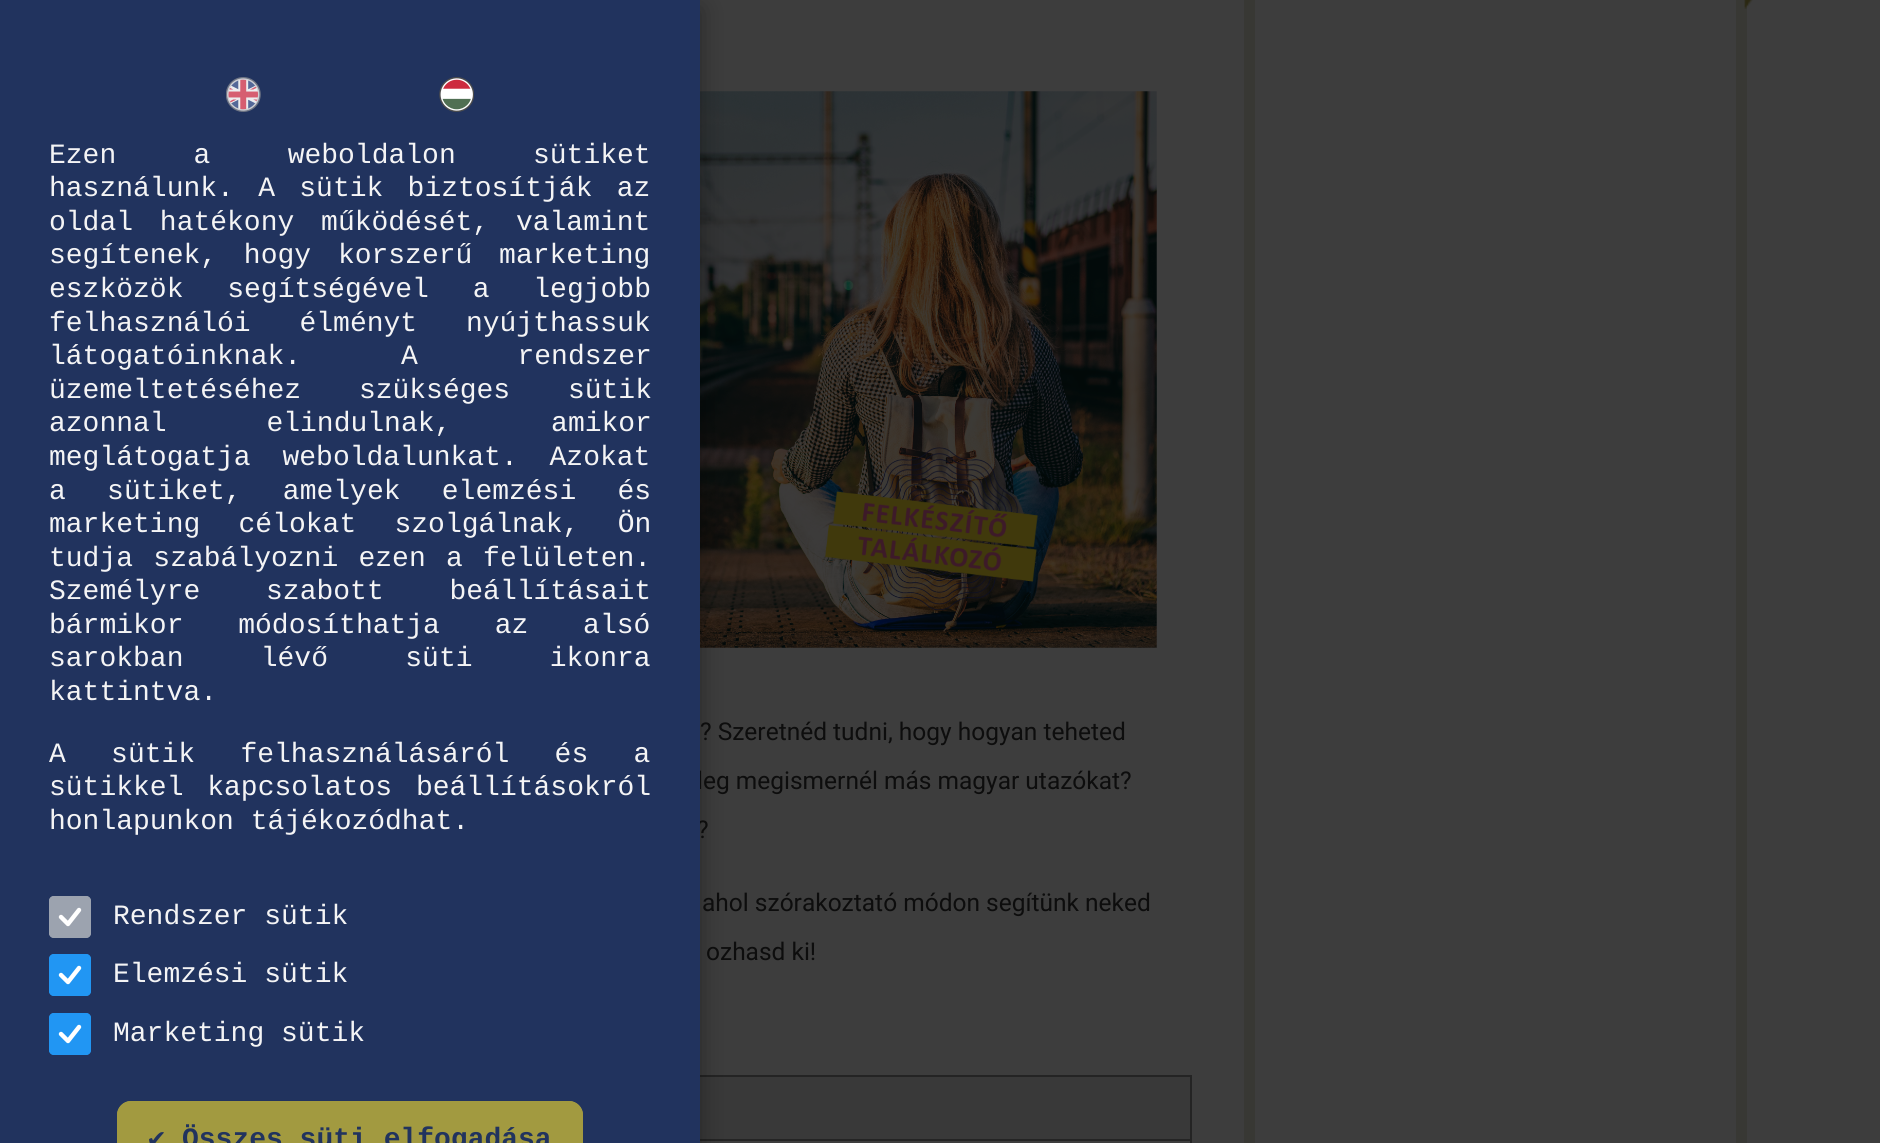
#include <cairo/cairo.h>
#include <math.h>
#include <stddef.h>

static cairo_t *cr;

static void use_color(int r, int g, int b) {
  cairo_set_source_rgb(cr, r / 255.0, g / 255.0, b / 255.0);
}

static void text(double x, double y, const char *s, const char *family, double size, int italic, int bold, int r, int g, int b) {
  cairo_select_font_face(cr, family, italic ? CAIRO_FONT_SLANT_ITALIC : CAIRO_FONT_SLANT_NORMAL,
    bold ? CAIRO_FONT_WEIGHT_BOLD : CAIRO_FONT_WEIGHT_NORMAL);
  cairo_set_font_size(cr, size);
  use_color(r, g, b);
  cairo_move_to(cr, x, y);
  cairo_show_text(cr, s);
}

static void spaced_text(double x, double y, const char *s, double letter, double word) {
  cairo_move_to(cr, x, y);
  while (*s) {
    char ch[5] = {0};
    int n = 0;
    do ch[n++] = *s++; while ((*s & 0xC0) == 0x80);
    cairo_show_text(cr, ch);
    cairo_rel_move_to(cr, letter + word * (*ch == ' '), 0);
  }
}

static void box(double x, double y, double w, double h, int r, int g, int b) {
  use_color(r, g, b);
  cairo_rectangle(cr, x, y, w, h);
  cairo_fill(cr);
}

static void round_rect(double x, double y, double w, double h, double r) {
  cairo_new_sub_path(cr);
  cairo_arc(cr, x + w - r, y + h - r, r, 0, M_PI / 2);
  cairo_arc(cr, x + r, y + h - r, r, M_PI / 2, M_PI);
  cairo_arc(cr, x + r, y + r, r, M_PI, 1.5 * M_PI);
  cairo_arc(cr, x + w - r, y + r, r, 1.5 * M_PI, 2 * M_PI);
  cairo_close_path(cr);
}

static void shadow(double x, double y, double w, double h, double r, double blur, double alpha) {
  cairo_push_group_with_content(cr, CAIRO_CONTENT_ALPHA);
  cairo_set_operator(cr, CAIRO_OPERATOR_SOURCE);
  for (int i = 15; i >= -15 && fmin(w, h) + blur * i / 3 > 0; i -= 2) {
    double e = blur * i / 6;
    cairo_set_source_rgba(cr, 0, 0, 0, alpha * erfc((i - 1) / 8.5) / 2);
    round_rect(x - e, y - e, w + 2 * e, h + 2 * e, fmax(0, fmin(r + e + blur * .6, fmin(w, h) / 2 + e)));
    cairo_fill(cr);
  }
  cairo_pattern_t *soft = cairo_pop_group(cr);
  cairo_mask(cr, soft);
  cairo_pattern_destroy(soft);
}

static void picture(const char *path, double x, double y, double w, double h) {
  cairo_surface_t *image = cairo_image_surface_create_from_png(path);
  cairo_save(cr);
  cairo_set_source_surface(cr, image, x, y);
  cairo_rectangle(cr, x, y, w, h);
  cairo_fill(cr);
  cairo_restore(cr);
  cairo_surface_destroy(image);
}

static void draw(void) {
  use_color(61, 61, 61);
  cairo_paint(cr);
  picture("img_03.png", 700, 91, 457, 557);
  box(700, 1077, 490, 62, 57, 57, 57);
  box(700, 1075, 492, 2, 36, 36, 36);
  box(700, 1139, 492, 2, 36, 36, 36);
  use_color(0, 0, 0);
  shadow(0, 9, 700, 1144, 0, 13, 0.35);
  box(1190, 1139, 2, 4, 36, 36, 36);
  box(1190, 1075, 2, 66, 36, 36, 36);
  box(1736, 0, 11, 1143, 56, 56, 52);
  box(1244, 0, 11, 1143, 56, 56, 52);
  picture("img_04.png", 1744, 0, 9, 9);
  text(700, 740, "? Szeretnéd tudni, hogy hogyan teheted", "Roboto", 24.5, 0, 0, 13, 13, 13);
  text(697, 789, "leg megismernél más magyar utazókat?", "Roboto", 24.5, 0, 0, 13, 13, 13);
  text(697, 838, "?", "Roboto", 24.5, 0, 0, 13, 13, 13);
  box(0, 0, 700, 1143, 33, 51, 94);
  use_color(162, 154, 64);
  cairo_new_path(cr);
  cairo_move_to(cr, 131, 1101);
  cairo_line_to(cr, 569, 1101);
  cairo_curve_to(cr, 576.5, 1101, 583, 1107.5, 583, 1115);
  cairo_line_to(cr, 583, 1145);
  cairo_line_to(cr, 117, 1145);
  cairo_line_to(cr, 117, 1115);
  cairo_curve_to(cr, 117, 1107.5, 123.5, 1101, 131, 1101);
  cairo_close_path(cr);
  cairo_fill(cr);
  round_rect(119, 1103, 462, 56, 12);
  cairo_set_line_width(cr, 4);
  cairo_stroke(cr);
  text(182, 1147, "Összes süti elfogadása", "Liberation Mono", 28, 0, 1, 33, 51, 94);
  text(148, 1147, "✔", "DejaVu Sans Mono", 28, 0, 1, 33, 51, 94);
  picture("img_01.png", 226, 77, 35, 35);
  text(113, 1041, "Marketing sütik", "Liberation Mono", 28, 0, 0, 244, 244, 245);
  use_color(33, 150, 243);
  round_rect(49, 1013, 42, 42, 5);
  cairo_fill(cr);
  cairo_new_path(cr);
  cairo_move_to(cr, 61, 1034);
  cairo_line_to(cr, 68, 1041);
  cairo_line_to(cr, 79, 1027);
  use_color(255, 255, 255);
  cairo_set_line_width(cr, 4.4);
  cairo_set_line_cap(cr, CAIRO_LINE_CAP_ROUND);
  cairo_set_line_join(cr, CAIRO_LINE_JOIN_ROUND);
  cairo_stroke(cr);
  round_rect(51, 1015, 38, 38, 3);
  use_color(33, 150, 243);
  cairo_set_line_width(cr, 4);
  cairo_set_line_cap(cr, CAIRO_LINE_CAP_BUTT);
  cairo_set_line_join(cr, CAIRO_LINE_JOIN_MITER);
  cairo_stroke(cr);
  text(113, 982, "Elemzési sütik", "Liberation Mono", 28, 0, 0, 244, 244, 245);
  use_color(33, 150, 243);
  round_rect(49, 954, 42, 42, 5);
  cairo_fill(cr);
  cairo_new_path(cr);
  cairo_move_to(cr, 61, 975);
  cairo_line_to(cr, 68, 982);
  cairo_line_to(cr, 79, 968);
  use_color(255, 255, 255);
  cairo_set_line_width(cr, 4.4);
  cairo_set_line_cap(cr, CAIRO_LINE_CAP_ROUND);
  cairo_set_line_join(cr, CAIRO_LINE_JOIN_ROUND);
  cairo_stroke(cr);
  round_rect(51, 956, 38, 38, 3);
  use_color(33, 150, 243);
  cairo_set_line_width(cr, 4);
  cairo_set_line_cap(cr, CAIRO_LINE_CAP_BUTT);
  cairo_set_line_join(cr, CAIRO_LINE_JOIN_MITER);
  cairo_stroke(cr);
  text(113, 924, "Rendszer sütik", "Liberation Mono", 28, 0, 0, 244, 244, 245);
  use_color(156, 163, 175);
  round_rect(49, 896, 42, 42, 5);
  cairo_fill(cr);
  cairo_new_path(cr);
  cairo_move_to(cr, 61, 917);
  cairo_line_to(cr, 68, 924);
  cairo_line_to(cr, 79, 910);
  use_color(255, 255, 255);
  cairo_set_line_width(cr, 4.4);
  cairo_set_line_cap(cr, CAIRO_LINE_CAP_ROUND);
  cairo_set_line_join(cr, CAIRO_LINE_JOIN_ROUND);
  cairo_stroke(cr);
  round_rect(51, 898, 38, 38, 3);
  use_color(156, 163, 175);
  cairo_set_line_width(cr, 4);
  cairo_set_line_cap(cr, CAIRO_LINE_CAP_BUTT);
  cairo_set_line_join(cr, CAIRO_LINE_JOIN_MITER);
  cairo_stroke(cr);
  text(49, 829, "honlapunkon tájékozódhat.", "Liberation Mono", 28, 0, 0, 244, 244, 245);
  spaced_text(49, 795, "sütikkel kapcsolatos beállításokról", 0, 7);
  spaced_text(49, 762, "A sütik felhasználásáról és a", 0, 28.5);
  text(49, 700, "kattintva.", "Liberation Mono", 28, 0, 0, 244, 244, 245);
  spaced_text(49, 666, "sarokban lévő süti ikonra", 0, 60.5);
  spaced_text(49, 633, "bármikor módosíthatja az alsó", 0, 38);
  spaced_text(49, 599, "Személyre szabott beállításait", 0, 49);
  spaced_text(49, 566, "tudja szabályozni ezen a felületen.", 0, 3.5);
  spaced_text(49, 532, "marketing célokat szolgálnak, Ön", 0, 21.5);
  spaced_text(49, 499, "a sütiket, amelyek elemzési és", 0, 24.5);
  spaced_text(49, 465, "meglátogatja weboldalunkat. Azokat", 0, 15);
  spaced_text(49, 431, "azonnal elindulnak, amikor", 0, 83);
  spaced_text(49, 398, "üzemeltetéséhez szükséges sütik", 0, 41);
  spaced_text(49, 364, "látogatóinknak. A rendszer", 0, 83);
  spaced_text(49, 331, "felhasználói élményt nyújthassuk", 0, 32);
  spaced_text(49, 297, "eszközök segítségével a legjobb", 0, 27);
  spaced_text(49, 263, "segítenek, hogy korszerű marketing", 0, 10);
  spaced_text(49, 230, "oldal hatékony működését, valamint", 0, 10);
  spaced_text(49, 196, "használunk. A sütik biztosítják az", 0, 7.5);
  spaced_text(49, 163, "Ezen a weboldalon sütiket", 0, 60.5);
  picture("img_02.png", 439, 77, 35, 35);
  text(702, 911, "ahol szórakoztató módon segítünk neked", "Roboto", 24.5, 0, 0, 13, 13, 13);
  text(706, 960, "ozhasd ki!", "Roboto", 24.5, 0, 0, 13, 13, 13);
}

int main(void) {
  cairo_surface_t *surface = cairo_image_surface_create(CAIRO_FORMAT_RGB24, 1880, 1143);
  cr = cairo_create(surface);
  cairo_font_options_t *options = cairo_font_options_create();
  cairo_font_options_set_hint_metrics(options, CAIRO_HINT_METRICS_OFF);
  cairo_font_options_set_hint_style(options, CAIRO_HINT_STYLE_NONE);
  cairo_set_font_options(cr, options);
  cairo_set_miter_limit(cr, 4);
  draw();
  cairo_surface_write_to_png(surface, "out.png");
  cairo_font_options_destroy(options);
  cairo_destroy(cr);
  cairo_surface_destroy(surface);
  return 0;
}
